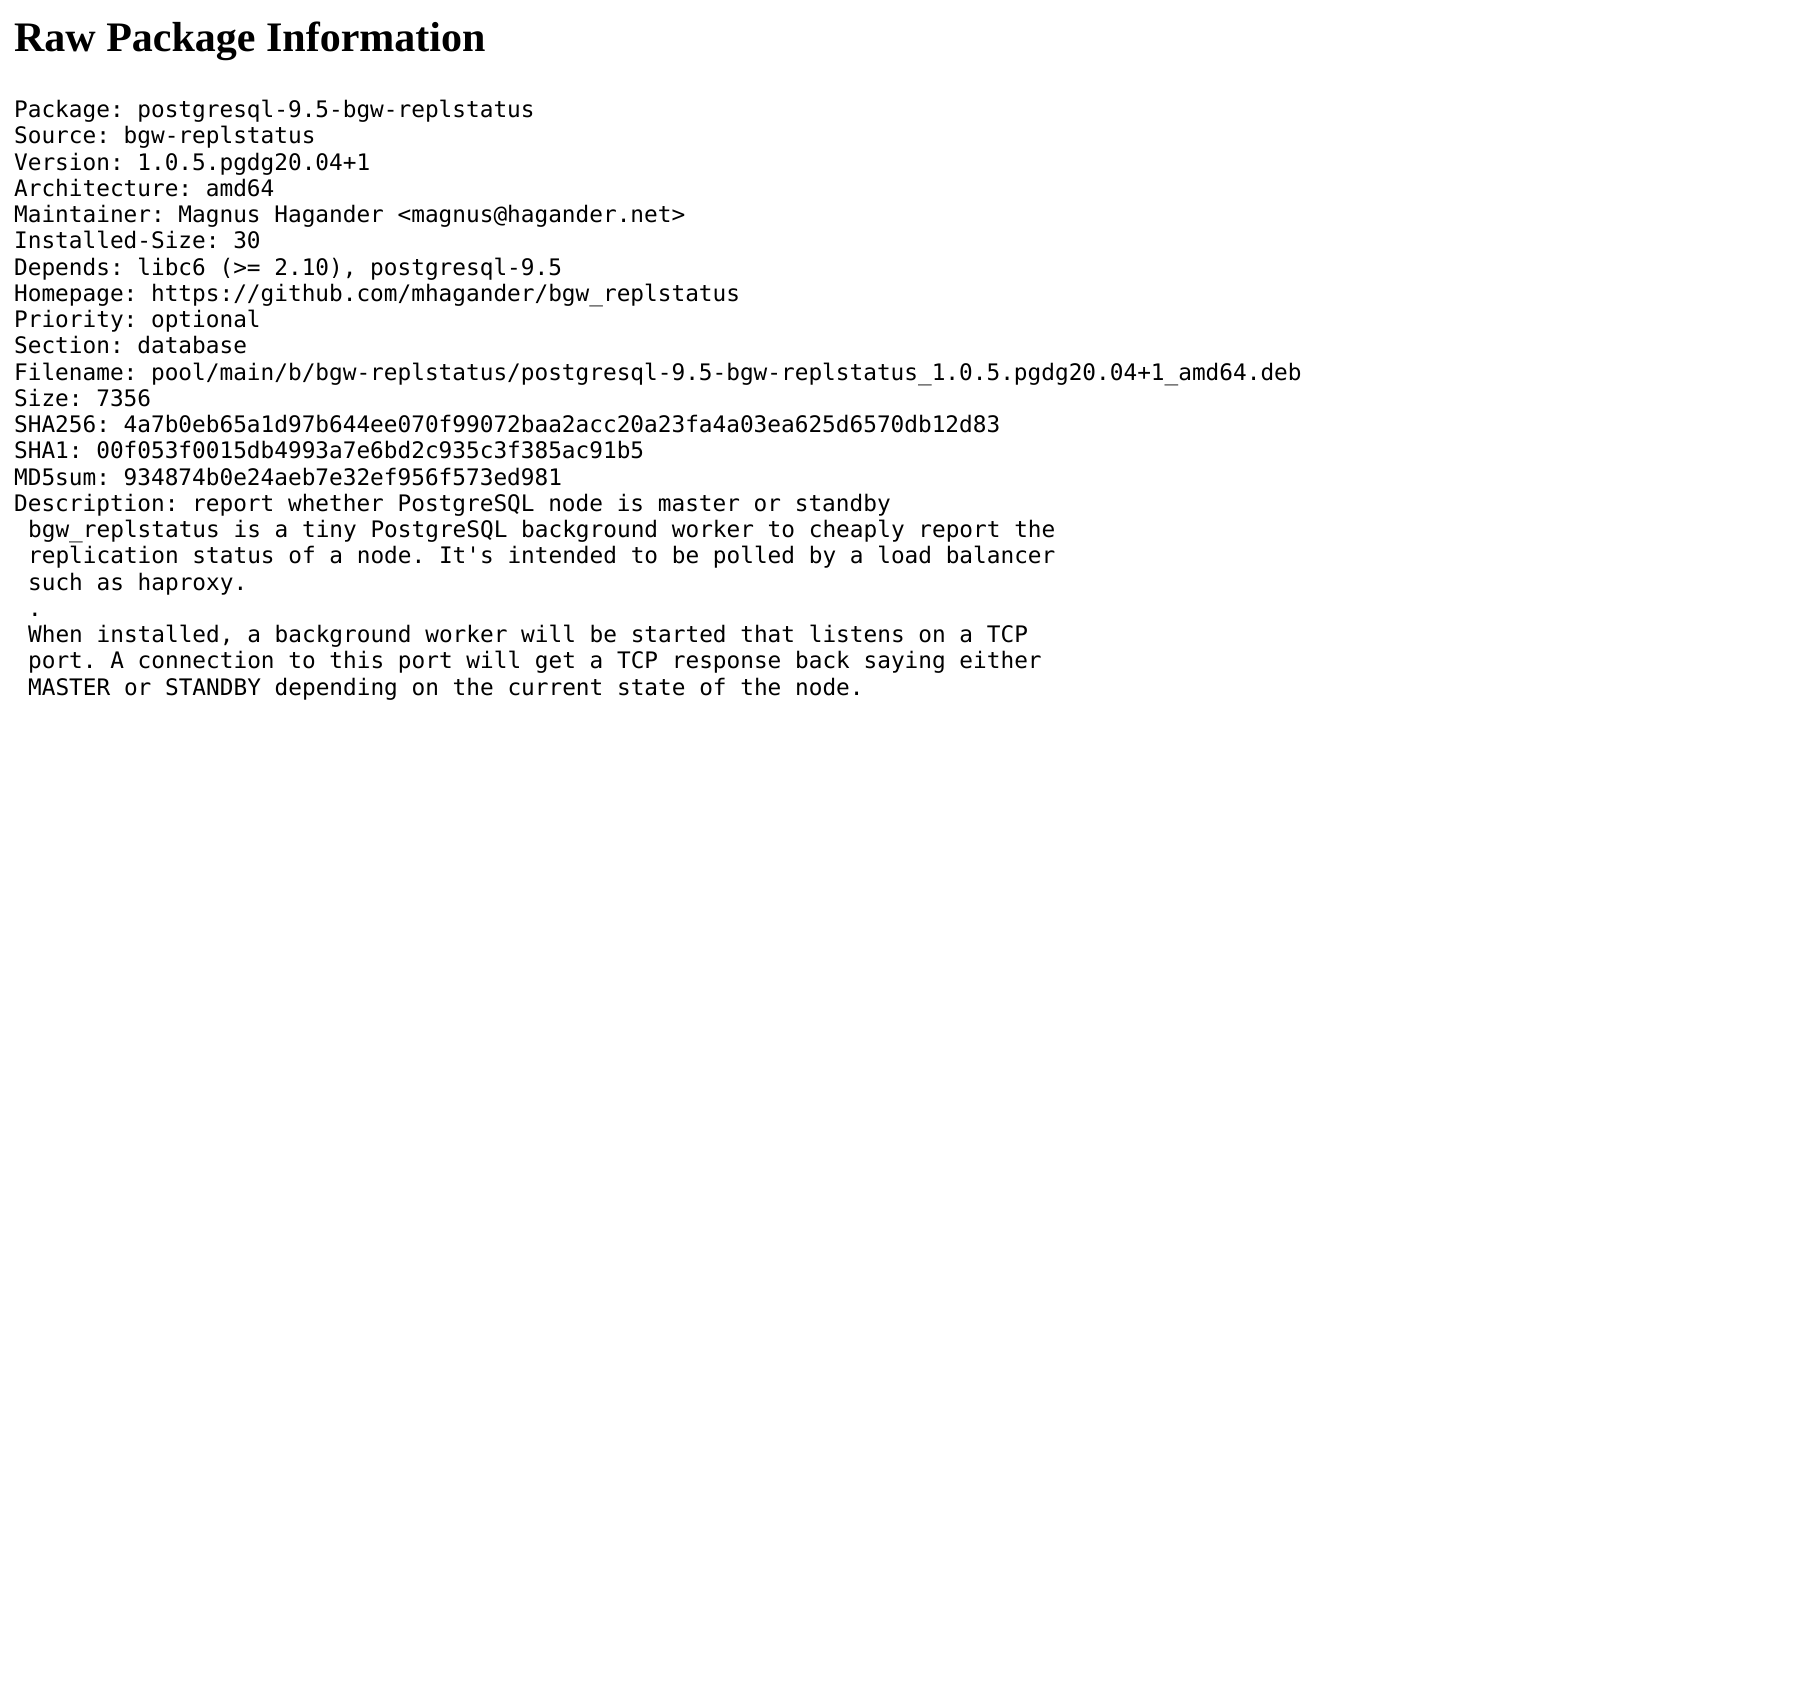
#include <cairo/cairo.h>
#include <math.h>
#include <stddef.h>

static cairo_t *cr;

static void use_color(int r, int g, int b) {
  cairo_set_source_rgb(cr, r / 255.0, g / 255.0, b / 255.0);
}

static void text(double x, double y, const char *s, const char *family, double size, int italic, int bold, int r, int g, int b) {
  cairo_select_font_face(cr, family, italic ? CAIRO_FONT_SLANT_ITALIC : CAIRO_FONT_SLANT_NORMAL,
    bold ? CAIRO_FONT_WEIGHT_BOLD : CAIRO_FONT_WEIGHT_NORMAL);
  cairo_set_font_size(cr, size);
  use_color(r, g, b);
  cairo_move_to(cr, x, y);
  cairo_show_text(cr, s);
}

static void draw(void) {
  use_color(255, 255, 255);
  cairo_paint(cr);
  text(14, 51, "Raw Package Information", "Liberation Serif", 42, 0, 1, 0, 0, 0);
  text(14, 117, "Package: postgresql-9.5-bgw-replstatus", "DejaVu Sans Mono", 22.75, 0, 0, 0, 0, 0);
  text(14, 143, "Source: bgw-replstatus", "DejaVu Sans Mono", 22.75, 0, 0, 0, 0, 0);
  text(14, 170, "Version: 1.0.5.pgdg20.04+1", "DejaVu Sans Mono", 22.75, 0, 0, 0, 0, 0);
  text(14, 196, "Architecture: amd64", "DejaVu Sans Mono", 22.75, 0, 0, 0, 0, 0);
  text(14, 222, "Maintainer: Magnus Hagander <magnus@hagander.net>", "DejaVu Sans Mono", 22.75, 0, 0, 0, 0, 0);
  text(14, 248, "Installed-Size: 30", "DejaVu Sans Mono", 22.75, 0, 0, 0, 0, 0);
  text(14, 275, "Depends: libc6 (>= 2.10), postgresql-9.5", "DejaVu Sans Mono", 22.75, 0, 0, 0, 0, 0);
  text(14, 301, "Homepage: https://github.com/mhagander/bgw_replstatus", "DejaVu Sans Mono", 22.75, 0, 0, 0, 0, 0);
  text(14, 327, "Priority: optional", "DejaVu Sans Mono", 22.75, 0, 0, 0, 0, 0);
  text(14, 353, "Section: database", "DejaVu Sans Mono", 22.75, 0, 0, 0, 0, 0);
  text(14, 380, "Filename: pool/main/b/bgw-replstatus/postgresql-9.5-bgw-replstatus_1.0.5.pgdg20.04+1_amd64.deb", "DejaVu Sans Mono", 22.75, 0, 0, 0, 0, 0);
  text(14, 406, "Size: 7356", "DejaVu Sans Mono", 22.75, 0, 0, 0, 0, 0);
  text(14, 432, "SHA256: 4a7b0eb65a1d97b644ee070f99072baa2acc20a23fa4a03ea625d6570db12d83", "DejaVu Sans Mono", 22.75, 0, 0, 0, 0, 0);
  text(14, 458, "SHA1: 00f053f0015db4993a7e6bd2c935c3f385ac91b5", "DejaVu Sans Mono", 22.75, 0, 0, 0, 0, 0);
  text(14, 485, "MD5sum: 934874b0e24aeb7e32ef956f573ed981", "DejaVu Sans Mono", 22.75, 0, 0, 0, 0, 0);
  text(14, 511, "Description: report whether PostgreSQL node is master or standby", "DejaVu Sans Mono", 22.75, 0, 0, 0, 0, 0);
  text(28, 537, "bgw_replstatus is a tiny PostgreSQL background worker to cheaply report the", "DejaVu Sans Mono", 22.75, 0, 0, 0, 0, 0);
  text(28, 563, "replication status of a node. It's intended to be polled by a load balancer", "DejaVu Sans Mono", 22.75, 0, 0, 0, 0, 0);
  text(28, 590, "such as haproxy.", "DejaVu Sans Mono", 22.75, 0, 0, 0, 0, 0);
  text(28, 616, ".", "DejaVu Sans Mono", 22.75, 0, 0, 0, 0, 0);
  text(28, 642, "When installed, a background worker will be started that listens on a TCP", "DejaVu Sans Mono", 22.75, 0, 0, 0, 0, 0);
  text(28, 668, "port. A connection to this port will get a TCP response back saying either", "DejaVu Sans Mono", 22.75, 0, 0, 0, 0, 0);
  text(28, 695, "MASTER or STANDBY depending on the current state of the node.", "DejaVu Sans Mono", 22.75, 0, 0, 0, 0, 0);
}

int main(void) {
  cairo_surface_t *surface = cairo_image_surface_create(CAIRO_FORMAT_RGB24, 1797, 1685);
  cr = cairo_create(surface);
  cairo_font_options_t *options = cairo_font_options_create();
  cairo_font_options_set_hint_metrics(options, CAIRO_HINT_METRICS_OFF);
  cairo_font_options_set_hint_style(options, CAIRO_HINT_STYLE_NONE);
  cairo_set_font_options(cr, options);
  cairo_set_miter_limit(cr, 4);
  draw();
  cairo_surface_write_to_png(surface, "out.png");
  cairo_font_options_destroy(options);
  cairo_destroy(cr);
  cairo_surface_destroy(surface);
  return 0;
}
